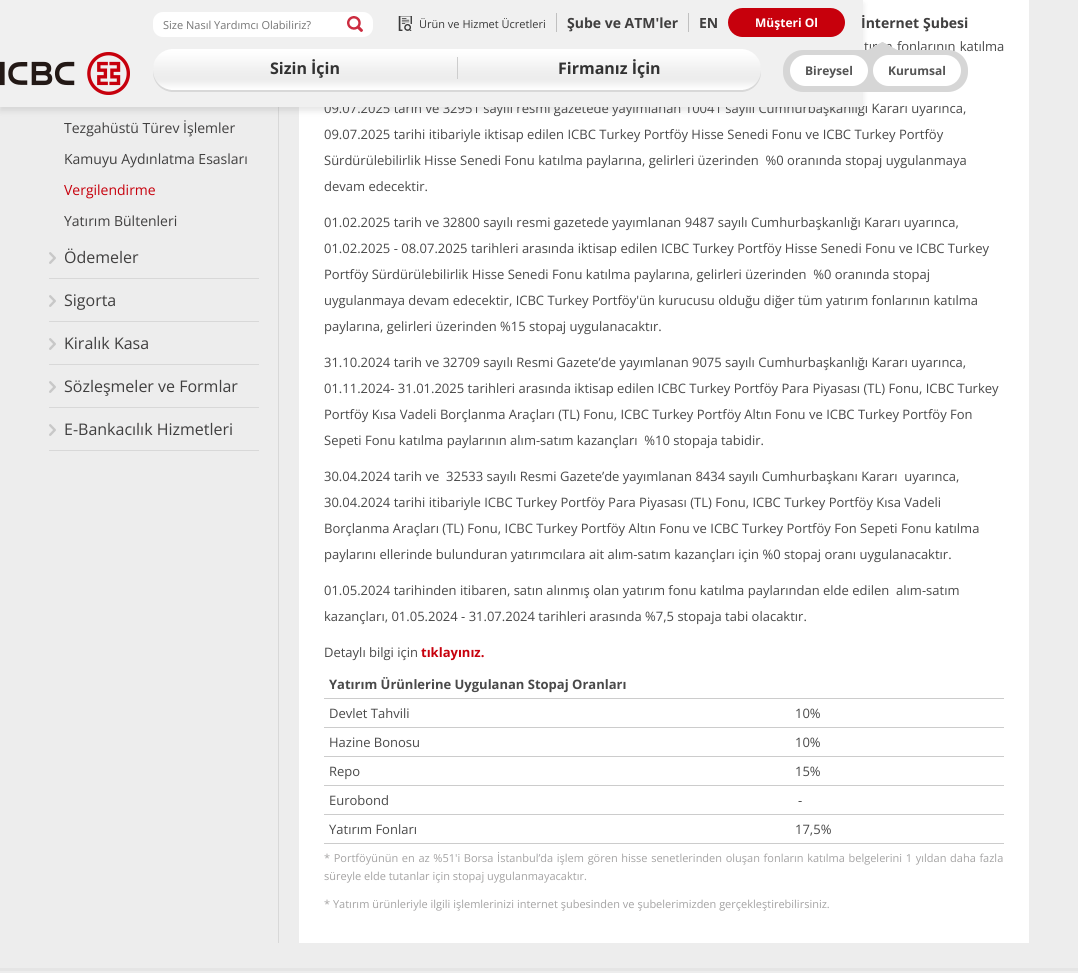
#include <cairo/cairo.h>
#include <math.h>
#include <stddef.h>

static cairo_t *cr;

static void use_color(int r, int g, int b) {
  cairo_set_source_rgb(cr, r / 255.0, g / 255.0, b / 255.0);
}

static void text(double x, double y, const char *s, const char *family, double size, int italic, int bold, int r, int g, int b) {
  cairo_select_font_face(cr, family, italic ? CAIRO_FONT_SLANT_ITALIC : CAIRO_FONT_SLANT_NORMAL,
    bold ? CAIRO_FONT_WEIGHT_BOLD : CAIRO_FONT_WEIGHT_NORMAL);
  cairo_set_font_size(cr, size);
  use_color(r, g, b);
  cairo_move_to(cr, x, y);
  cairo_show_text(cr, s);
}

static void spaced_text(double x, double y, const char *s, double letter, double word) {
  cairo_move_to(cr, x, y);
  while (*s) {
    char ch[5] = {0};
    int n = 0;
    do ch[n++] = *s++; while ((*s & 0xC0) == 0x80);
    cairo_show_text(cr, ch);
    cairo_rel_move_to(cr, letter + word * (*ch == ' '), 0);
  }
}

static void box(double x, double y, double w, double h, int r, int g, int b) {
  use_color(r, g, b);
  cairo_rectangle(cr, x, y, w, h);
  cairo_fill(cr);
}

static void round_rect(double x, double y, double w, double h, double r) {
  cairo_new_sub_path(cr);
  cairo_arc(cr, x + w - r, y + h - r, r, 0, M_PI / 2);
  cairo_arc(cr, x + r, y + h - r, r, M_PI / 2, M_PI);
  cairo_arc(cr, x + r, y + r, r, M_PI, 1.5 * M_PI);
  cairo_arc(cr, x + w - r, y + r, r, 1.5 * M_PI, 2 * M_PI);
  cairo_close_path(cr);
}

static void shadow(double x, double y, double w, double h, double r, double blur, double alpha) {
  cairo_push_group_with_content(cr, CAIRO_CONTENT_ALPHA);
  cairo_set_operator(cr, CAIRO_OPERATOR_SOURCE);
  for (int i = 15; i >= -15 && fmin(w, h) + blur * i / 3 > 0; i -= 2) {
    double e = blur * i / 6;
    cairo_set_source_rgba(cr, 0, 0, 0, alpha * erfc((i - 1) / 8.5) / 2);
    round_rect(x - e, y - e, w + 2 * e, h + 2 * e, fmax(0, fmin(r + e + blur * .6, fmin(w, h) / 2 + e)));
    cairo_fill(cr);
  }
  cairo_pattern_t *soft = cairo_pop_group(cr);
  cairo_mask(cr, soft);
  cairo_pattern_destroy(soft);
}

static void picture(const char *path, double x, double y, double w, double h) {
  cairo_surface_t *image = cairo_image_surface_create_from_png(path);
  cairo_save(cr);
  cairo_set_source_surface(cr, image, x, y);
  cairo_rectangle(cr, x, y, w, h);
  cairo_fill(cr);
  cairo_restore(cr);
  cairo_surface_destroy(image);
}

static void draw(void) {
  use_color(237, 237, 237);
  cairo_paint(cr);
  box(278, 107, 1, 836, 216, 216, 216);
  box(299, 0, 730, 943, 255, 255, 255);
  use_color(0, 0, 0);
  shadow(0, 4, 863, 107, 0, 3, 0.1);
  picture("img_07.png", 49, 252, 7, 12);
  box(49, 278, 210, 1, 216, 216, 216);
  picture("img_07.png", 49, 295, 7, 12);
  box(49, 321, 210, 1, 216, 216, 216);
  picture("img_07.png", 49, 338, 7, 12);
  box(49, 364, 210, 1, 216, 216, 216);
  picture("img_07.png", 49, 381, 7, 12);
  box(49, 407, 210, 1, 216, 216, 216);
  picture("img_07.png", 49, 424, 7, 12);
  box(49, 450, 210, 1, 216, 216, 216);
  box(324, 698, 680, 1, 204, 204, 204);
  box(324, 727, 680, 1, 204, 204, 204);
  box(324, 756, 680, 1, 204, 204, 204);
  box(324, 785, 680, 1, 204, 204, 204);
  box(324, 814, 680, 1, 204, 204, 204);
  box(324, 843, 680, 1, 204, 204, 204);
  box(0, 968, 1078, 3, 229, 229, 229);
  text(923, 28, "Şubesi", "Open Sans", 14, 0, 1, 64, 63, 63);
  text(64, 133, "Tezgahüstü Türev İşlemler", "Open Sans", 14, 0, 0, 64, 63, 63);
  text(64, 164, "Kamuyu Aydınlatma Esasları", "Open Sans", 14, 0, 0, 64, 63, 63);
  text(64, 195, "Vergilendirme", "Open Sans", 14, 0, 0, 199, 0, 12);
  text(64, 226, "Yatırım Bültenleri", "Open Sans", 14, 0, 0, 64, 63, 63);
  text(64, 263, "Ödemeler", "Open Sans", 16, 0, 0, 64, 63, 63);
  text(64, 306, "Sigorta", "Open Sans", 16, 0, 0, 64, 63, 63);
  text(64, 349, "Kiralık Kasa", "Open Sans", 16, 0, 0, 64, 63, 63);
  text(64, 392, "Sözleşmeler ve Formlar", "Open Sans", 16, 0, 0, 64, 63, 63);
  text(64, 435, "E-Bankacılık Hizmetleri", "Open Sans", 16, 0, 0, 64, 63, 63);
  cairo_set_font_size(cr, 13);
  use_color(73, 73, 73);
  spaced_text(864, 51, "tırım fonlarının katılma", 0, 1);
  picture("img_05.png", 868, 42, 29, 8);
  picture("img_06.png", 868, 42, 29, 8);
  text(324, 113, "09.07.2025 tarih ve 32951 sayılı resmi gazetede yayımlanan 10041 sayılı Cumhurbaşkanlığı Kararı uyarınca,", "Open Sans", 13, 0, 0, 73, 73, 73);
  box(0, 0, 863, 107, 240, 240, 240);
  use_color(255, 255, 255);
  round_rect(153, 12, 220, 25, 10);
  cairo_fill(cr);
  picture("img_02.png", 347, 16, 16, 16);
  use_color(214, 214, 214);
  round_rect(783, 50, 185, 42, 20);
  cairo_fill(cr);
  use_color(255, 255, 255);
  round_rect(873, 55, 88, 31, 15.5);
  cairo_fill(cr);
  text(888, 75, "Kurumsal", "Open Sans", 12, 0, 1, 84, 84, 84);
  use_color(255, 255, 255);
  round_rect(790, 55, 78, 31, 15.5);
  cairo_fill(cr);
  text(805, 75, "Bireysel", "Open Sans", 12, 0, 1, 84, 84, 84);
  picture("img_04.png", 153, 49, 608, 43);
  text(558, 74, "Firmanız İçin", "Open Sans", 16, 0, 1, 50, 50, 50);
  text(270, 74, "Sizin İçin", "Open Sans", 16, 0, 1, 50, 50, 50);
  box(457, 57, 1, 22, 205, 205, 205);
  text(861, 28, "İnternet", "Open Sans", 14, 0, 1, 64, 63, 63);
  use_color(199, 0, 12);
  round_rect(728, 8, 117, 29, 14.5);
  cairo_fill(cr);
  text(755, 27, "Müşteri Ol", "Open Sans", 12, 0, 1, 255, 255, 255);
  text(699, 28, "EN", "Open Sans", 14, 0, 1, 64, 63, 63);
  box(688, 13, 1, 19, 192, 192, 192);
  text(567, 28, "Şube ve ATM'ler", "Open Sans", 14, 0, 1, 64, 63, 63);
  box(556, 13, 1, 19, 192, 192, 192);
  text(419, 28, "Ürün ve Hizmet Ücretleri", "Open Sans", 11, 0, 0, 57, 57, 57);
  box(398, 16, 1, 15, 192, 192, 192);
  picture("img_03.png", 399, 16, 13, 15);
  text(163, 29, "Size Nasıl Yardımcı Olabiliriz?", "Open Sans", 11, 0, 0, 117, 117, 117);
  picture("img_01.png", 0, 52, 130, 43);
  text(324, 139, "09.07.2025 tarihi itibariyle iktisap edilen ICBC Turkey Portföy Hisse Senedi Fonu ve ICBC Turkey Portföy", "Open Sans", 13, 0, 0, 73, 73, 73);
  text(324, 165, "Sürdürülebilirlik Hisse Senedi Fonu katılma paylarına, gelirleri üzerinden  %0 oranında stopaj uygulanmaya", "Open Sans", 13, 0, 0, 73, 73, 73);
  text(324, 191, "devam edecektir.", "Open Sans", 13, 0, 0, 73, 73, 73);
  text(324, 227, "01.02.2025 tarih ve 32800 sayılı resmi gazetede yayımlanan 9487 sayılı Cumhurbaşkanlığı Kararı uyarınca,", "Open Sans", 13, 0, 0, 73, 73, 73);
  text(324, 253, "01.02.2025 - 08.07.2025 tarihleri arasında iktisap edilen ICBC Turkey Portföy Hisse Senedi Fonu ve ICBC Turkey", "Open Sans", 13, 0, 0, 73, 73, 73);
  text(324, 279, "Portföy Sürdürülebilirlik Hisse Senedi Fonu katılma paylarına, gelirleri üzerinden  %0 oranında stopaj", "Open Sans", 13, 0, 0, 73, 73, 73);
  text(324, 305, "uygulanmaya devam edecektir, ICBC Turkey Portföy'ün kurucusu olduğu diğer tüm yatırım fonlarının katılma", "Open Sans", 13, 0, 0, 73, 73, 73);
  text(324, 331, "paylarına, gelirleri üzerinden %15 stopaj uygulanacaktır.", "Open Sans", 13, 0, 0, 73, 73, 73);
  text(324, 367, "31.10.2024 tarih ve 32709 sayılı Resmi Gazete’de yayımlanan 9075 sayılı Cumhurbaşkanlığı Kararı uyarınca,", "Open Sans", 13, 0, 0, 73, 73, 73);
  text(324, 393, "01.11.2024- 31.01.2025 tarihleri arasında iktisap edilen ICBC Turkey Portföy Para Piyasası (TL) Fonu, ICBC Turkey", "Open Sans", 13, 0, 0, 73, 73, 73);
  text(324, 419, "Portföy Kısa Vadeli Borçlanma Araçları (TL) Fonu, ICBC Turkey Portföy Altın Fonu ve ICBC Turkey Portföy Fon", "Open Sans", 13, 0, 0, 73, 73, 73);
  text(324, 445, "Sepeti Fonu katılma paylarının alım-satım kazançları  %10 stopaja tabidir.", "Open Sans", 13, 0, 0, 73, 73, 73);
  text(324, 481, "30.04.2024 tarih ve  32533 sayılı Resmi Gazete’de yayımlanan 8434 sayılı Cumhurbaşkanı Kararı  uyarınca,", "Open Sans", 13, 0, 0, 73, 73, 73);
  text(324, 507, "30.04.2024 tarihi itibariyle ICBC Turkey Portföy Para Piyasası (TL) Fonu, ICBC Turkey Portföy Kısa Vadeli", "Open Sans", 13, 0, 0, 73, 73, 73);
  text(324, 533, "Borçlanma Araçları (TL) Fonu, ICBC Turkey Portföy Altın Fonu ve ICBC Turkey Portföy Fon Sepeti Fonu katılma", "Open Sans", 13, 0, 0, 73, 73, 73);
  text(324, 559, "paylarını ellerinde bulunduran yatırımcılara ait alım-satım kazançları için %0 stopaj oranı uygulanacaktır.", "Open Sans", 13, 0, 0, 73, 73, 73);
  text(324, 595, "01.05.2024 tarihinden itibaren, satın alınmış olan yatırım fonu katılma paylarından elde edilen  alım-satım", "Open Sans", 13, 0, 0, 73, 73, 73);
  text(324, 621, "kazançları, 01.05.2024 - 31.07.2024 tarihleri arasında %7,5 stopaja tabi olacaktır.", "Open Sans", 13, 0, 0, 73, 73, 73);
  text(324, 657, "Detaylı bilgi için", "Open Sans", 13, 0, 0, 73, 73, 73);
  text(421, 657, "tıklayınız.", "Open Sans", 13, 0, 1, 199, 0, 12);
  text(329, 689, "Yatırım Ürünlerine Uygulanan Stopaj Oranları", "Open Sans", 13, 0, 1, 73, 73, 73);
  text(329, 718, "Devlet Tahvili", "Open Sans", 13, 0, 0, 73, 73, 73);
  text(795, 718, "10%", "Open Sans", 13, 0, 0, 73, 73, 73);
  text(329, 747, "Hazine Bonosu", "Open Sans", 13, 0, 0, 73, 73, 73);
  text(795, 747, "10%", "Open Sans", 13, 0, 0, 73, 73, 73);
  text(329, 776, "Repo", "Open Sans", 13, 0, 0, 73, 73, 73);
  text(795, 776, "15%", "Open Sans", 13, 0, 0, 73, 73, 73);
  text(329, 805, "Eurobond", "Open Sans", 13, 0, 0, 73, 73, 73);
  text(798, 805, "-", "Open Sans", 13, 0, 0, 73, 73, 73);
  text(329, 834, "Yatırım Fonları", "Open Sans", 13, 0, 0, 73, 73, 73);
  text(795, 834, "17,5%", "Open Sans", 13, 0, 0, 73, 73, 73);
  cairo_set_font_size(cr, 11);
  use_color(164, 163, 163);
  spaced_text(324, 862, "* Portföyünün en az %51'i Borsa İstanbul’da işlem gören hisse senetlerinden oluşan fonların katılma belgelerini 1 yıldan daha fazla", 0, 0.8);
  text(324, 880, "süreyle elde tutanlar için stopaj uygulanmayacaktır.", "Open Sans", 11, 0, 0, 164, 163, 163);
  text(324, 908, "* Yatırım ürünleriyle ilgili işlemlerinizi internet şubesinden ve şubelerimizden gerçekleştirebilirsiniz.", "Open Sans", 11, 0, 0, 164, 163, 163);
}

int main(void) {
  cairo_surface_t *surface = cairo_image_surface_create(CAIRO_FORMAT_RGB24, 1078, 973);
  cr = cairo_create(surface);
  cairo_font_options_t *options = cairo_font_options_create();
  cairo_font_options_set_hint_metrics(options, CAIRO_HINT_METRICS_OFF);
  cairo_font_options_set_hint_style(options, CAIRO_HINT_STYLE_NONE);
  cairo_set_font_options(cr, options);
  cairo_set_miter_limit(cr, 4);
  draw();
  cairo_surface_write_to_png(surface, "out.png");
  cairo_font_options_destroy(options);
  cairo_destroy(cr);
  cairo_surface_destroy(surface);
  return 0;
}
